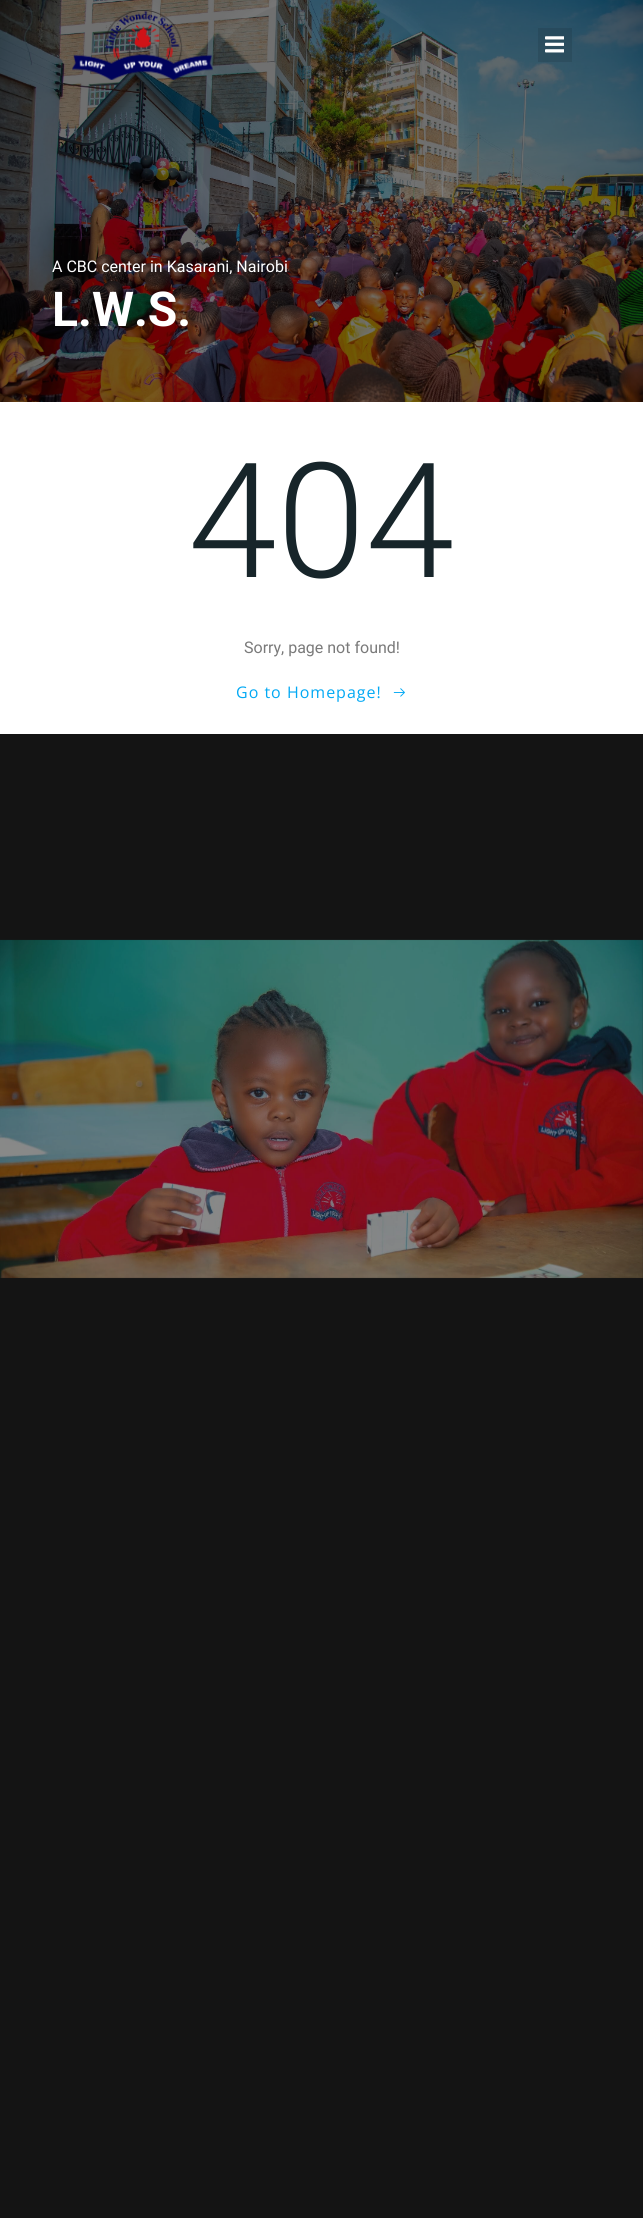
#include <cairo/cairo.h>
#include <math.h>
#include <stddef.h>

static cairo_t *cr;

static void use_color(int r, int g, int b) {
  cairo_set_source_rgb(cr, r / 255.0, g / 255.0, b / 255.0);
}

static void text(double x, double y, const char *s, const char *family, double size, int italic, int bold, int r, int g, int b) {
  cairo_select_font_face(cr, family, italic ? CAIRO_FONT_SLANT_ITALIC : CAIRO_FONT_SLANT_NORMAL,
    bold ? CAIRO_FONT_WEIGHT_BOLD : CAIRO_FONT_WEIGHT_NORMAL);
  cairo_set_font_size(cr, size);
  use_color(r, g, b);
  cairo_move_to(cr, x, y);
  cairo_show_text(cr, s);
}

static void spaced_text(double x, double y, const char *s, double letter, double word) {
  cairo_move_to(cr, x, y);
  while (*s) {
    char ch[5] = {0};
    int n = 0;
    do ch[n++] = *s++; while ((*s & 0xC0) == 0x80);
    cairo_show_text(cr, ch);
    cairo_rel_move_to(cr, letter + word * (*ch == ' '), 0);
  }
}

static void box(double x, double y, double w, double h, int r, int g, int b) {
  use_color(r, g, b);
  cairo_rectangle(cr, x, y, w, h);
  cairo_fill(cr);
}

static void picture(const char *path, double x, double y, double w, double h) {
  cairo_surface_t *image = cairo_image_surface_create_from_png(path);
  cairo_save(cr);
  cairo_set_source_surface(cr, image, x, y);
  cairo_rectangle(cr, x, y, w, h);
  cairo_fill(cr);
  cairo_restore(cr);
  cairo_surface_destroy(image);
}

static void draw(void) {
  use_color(255, 255, 255);
  cairo_paint(cr);
  picture("img_03.png", 0, 0, 643, 402);
  picture("img_04.png", 120, 0, 523, 402);
  picture("img_01.png", 72, 10, 141, 70);
  cairo_set_source_rgba(cr, 0, 0, 0, 0.1);
  cairo_rectangle(cr, 538, 28, 34, 34);
  cairo_fill(cr);
  picture("img_02.png", 545, 36, 19, 17);
  picture("img_05.png", 393, 688, 12, 9);
  box(0, 734, 643, 1484, 20, 20, 20);
  picture("img_06.png", 0, 939, 643, 340);
  text(52, 272, "A CBC center in Kasarani, Nairobi", "Roboto", 16, 0, 0, 255, 255, 255);
  text(52, 326, "L.W.S.", "Roboto", 48, 0, 1, 255, 255, 255);
  text(188, 577, "404", "Roboto Light", 160, 0, 0, 23, 37, 42);
  text(244, 653, "Sorry, page not found!", "Roboto", 16, 0, 0, 122, 122, 122);
  cairo_select_font_face(cr, "Open Sans", CAIRO_FONT_SLANT_NORMAL, CAIRO_FONT_WEIGHT_NORMAL);
  use_color(3, 169, 244);
  spaced_text(236, 698, "Go to Homepage!", 1, 0);
}

int main(void) {
  cairo_surface_t *surface = cairo_image_surface_create(CAIRO_FORMAT_RGB24, 643, 2218);
  cr = cairo_create(surface);
  cairo_font_options_t *options = cairo_font_options_create();
  cairo_font_options_set_hint_metrics(options, CAIRO_HINT_METRICS_OFF);
  cairo_font_options_set_hint_style(options, CAIRO_HINT_STYLE_NONE);
  cairo_set_font_options(cr, options);
  cairo_set_miter_limit(cr, 4);
  draw();
  cairo_surface_write_to_png(surface, "out.png");
  cairo_font_options_destroy(options);
  cairo_destroy(cr);
  cairo_surface_destroy(surface);
  return 0;
}
